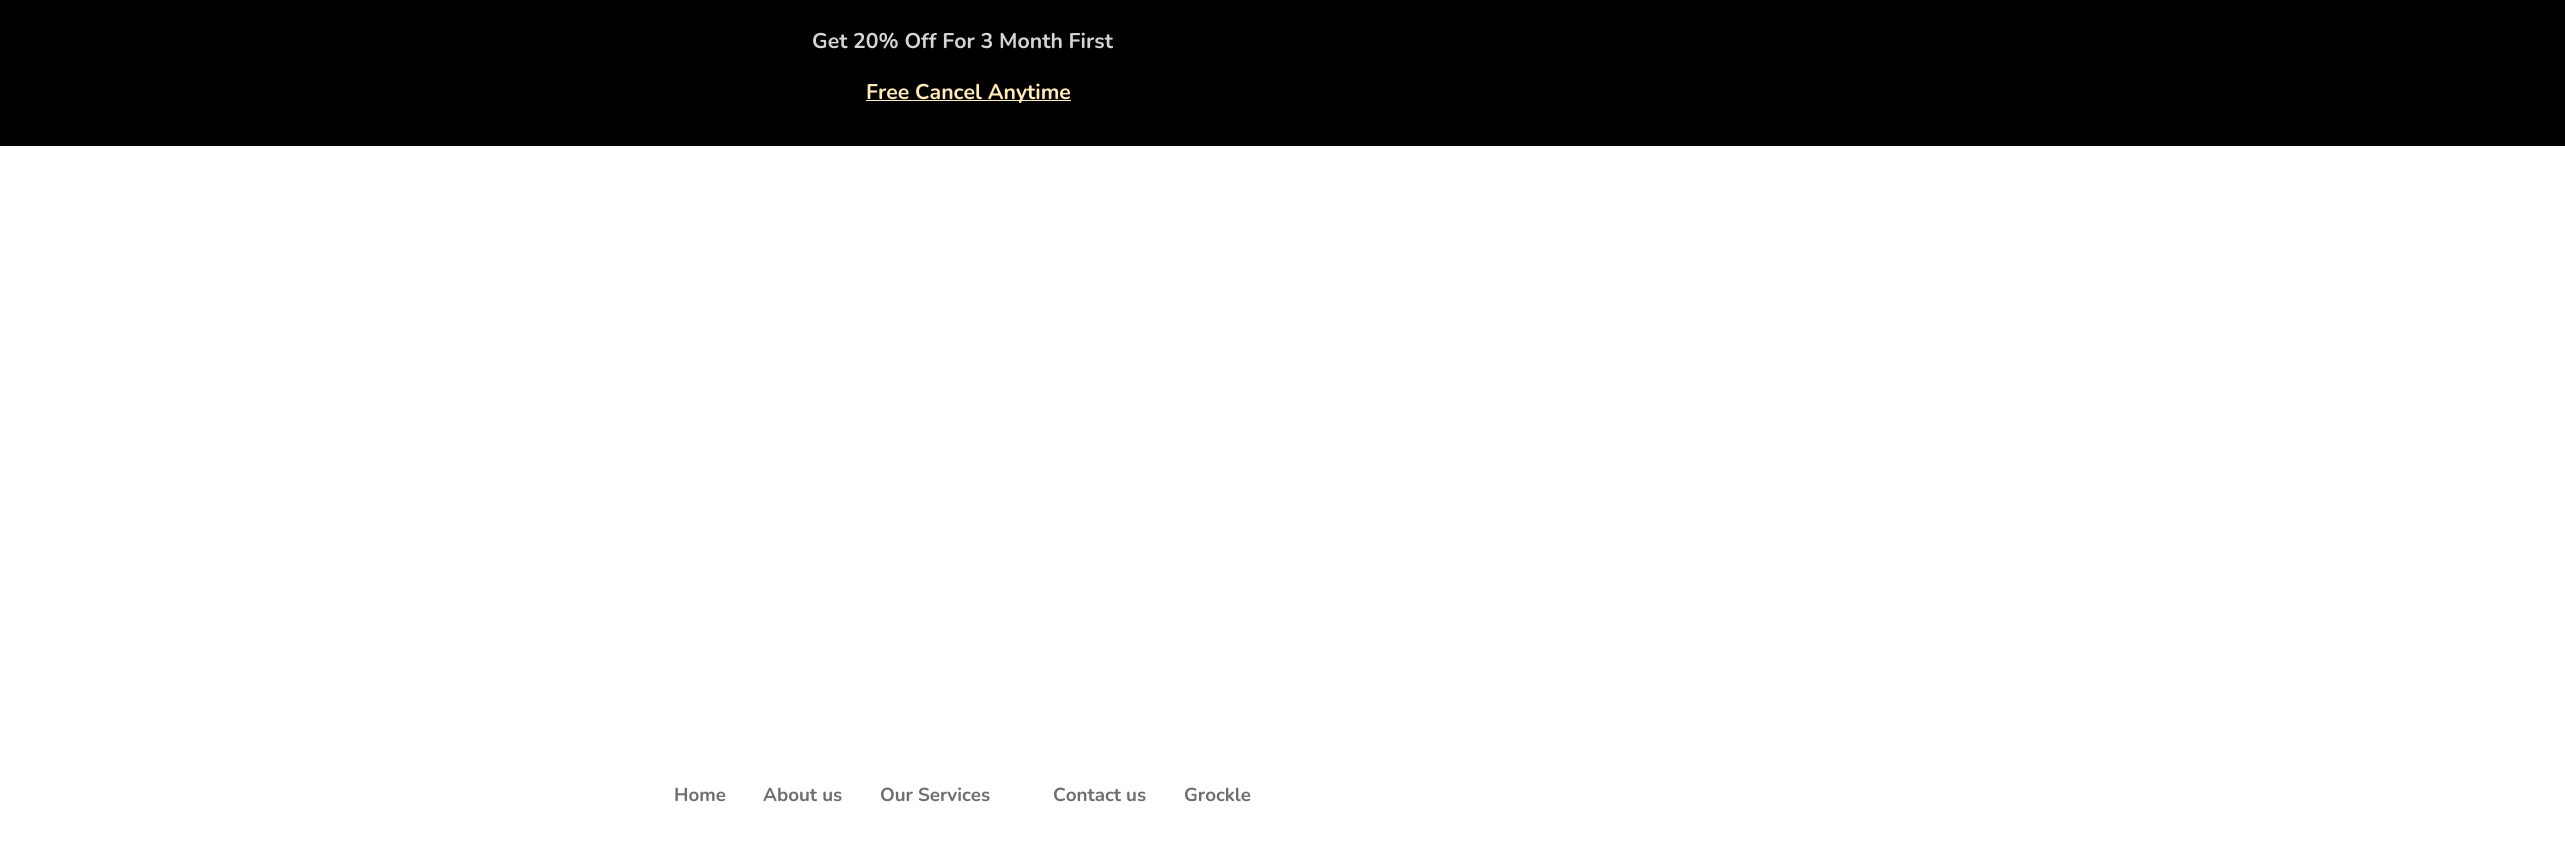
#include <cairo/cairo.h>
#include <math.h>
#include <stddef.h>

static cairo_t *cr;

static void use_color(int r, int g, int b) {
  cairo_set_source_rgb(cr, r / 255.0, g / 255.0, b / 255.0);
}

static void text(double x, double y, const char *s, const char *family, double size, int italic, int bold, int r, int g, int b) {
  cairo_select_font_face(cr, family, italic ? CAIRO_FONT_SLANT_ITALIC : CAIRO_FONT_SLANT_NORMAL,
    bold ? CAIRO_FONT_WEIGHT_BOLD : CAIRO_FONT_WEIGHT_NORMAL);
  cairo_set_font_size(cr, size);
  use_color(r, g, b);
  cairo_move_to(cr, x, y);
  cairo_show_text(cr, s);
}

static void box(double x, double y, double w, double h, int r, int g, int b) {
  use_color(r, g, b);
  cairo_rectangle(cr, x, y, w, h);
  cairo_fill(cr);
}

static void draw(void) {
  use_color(255, 255, 255);
  cairo_paint(cr);
  box(0, 0, 2565, 146, 0, 0, 0);
  box(866, 100, 205, 1, 255, 235, 183);
  text(812, 48, "Get 20% Off For 3 Month First", "Nunito", 21.25, 0, 1, 212, 212, 212);
  text(866, 99, "Free Cancel Anytime", "Nunito", 21.25, 0, 1, 255, 235, 183);
  text(674, 801, "Home", "Nunito", 18.75, 0, 1, 110, 110, 110);
  text(763, 801, "About us", "Nunito", 18.75, 0, 1, 110, 110, 110);
  text(880, 801, "Our Services", "Nunito", 18.75, 0, 1, 110, 110, 110);
  text(1053, 801, "Contact us", "Nunito", 18.75, 0, 1, 110, 110, 110);
  text(1184, 801, "Grockle", "Nunito", 18.75, 0, 1, 110, 110, 110);
}

int main(void) {
  cairo_surface_t *surface = cairo_image_surface_create(CAIRO_FORMAT_RGB24, 2565, 846);
  cr = cairo_create(surface);
  cairo_font_options_t *options = cairo_font_options_create();
  cairo_font_options_set_hint_metrics(options, CAIRO_HINT_METRICS_OFF);
  cairo_font_options_set_hint_style(options, CAIRO_HINT_STYLE_NONE);
  cairo_set_font_options(cr, options);
  cairo_set_miter_limit(cr, 4);
  draw();
  cairo_surface_write_to_png(surface, "out.png");
  cairo_font_options_destroy(options);
  cairo_destroy(cr);
  cairo_surface_destroy(surface);
  return 0;
}
